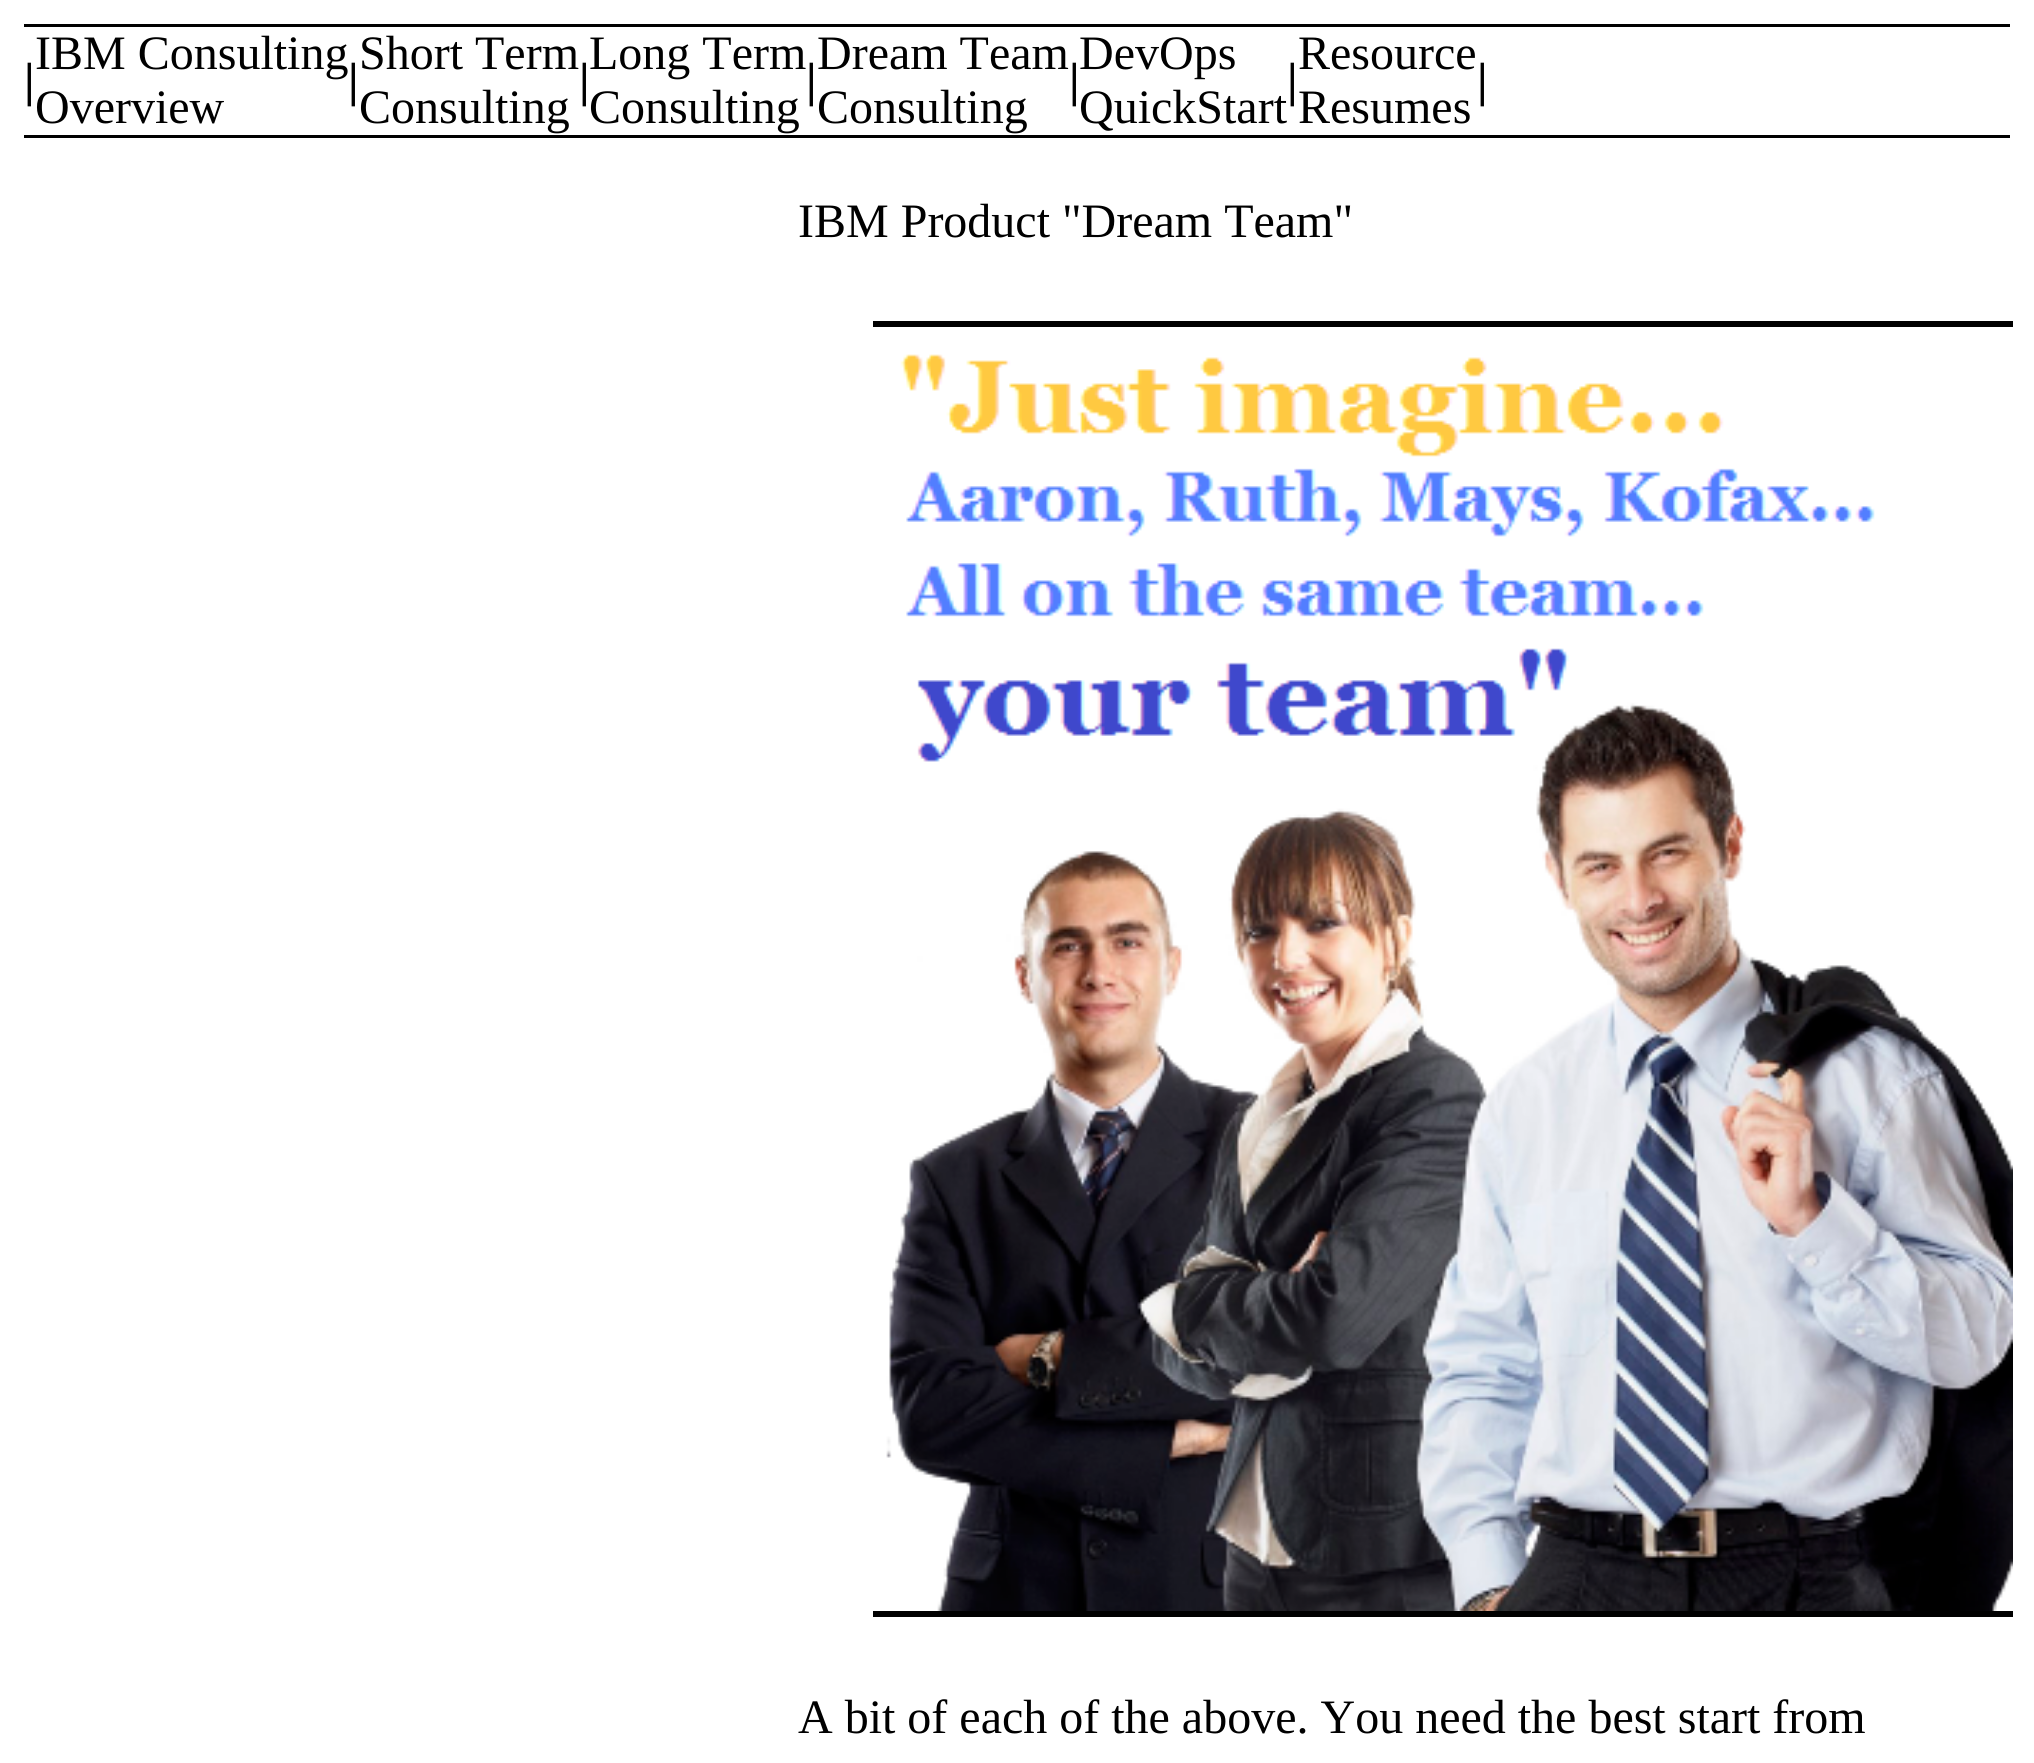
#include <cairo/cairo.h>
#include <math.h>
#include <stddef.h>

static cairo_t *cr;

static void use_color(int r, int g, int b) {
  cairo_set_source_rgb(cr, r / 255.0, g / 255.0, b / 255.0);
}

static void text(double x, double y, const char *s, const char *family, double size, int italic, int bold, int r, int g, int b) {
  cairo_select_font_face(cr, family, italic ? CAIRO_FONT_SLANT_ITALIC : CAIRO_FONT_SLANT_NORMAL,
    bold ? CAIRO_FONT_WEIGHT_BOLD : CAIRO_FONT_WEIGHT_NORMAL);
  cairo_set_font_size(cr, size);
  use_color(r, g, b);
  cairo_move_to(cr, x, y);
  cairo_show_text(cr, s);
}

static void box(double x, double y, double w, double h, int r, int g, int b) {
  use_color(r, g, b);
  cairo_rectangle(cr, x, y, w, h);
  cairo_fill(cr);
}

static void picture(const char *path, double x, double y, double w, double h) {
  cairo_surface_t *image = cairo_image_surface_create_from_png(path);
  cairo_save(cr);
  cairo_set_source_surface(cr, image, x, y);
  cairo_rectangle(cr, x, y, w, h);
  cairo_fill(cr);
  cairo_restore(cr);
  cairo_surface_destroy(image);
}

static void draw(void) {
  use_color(255, 255, 255);
  cairo_paint(cr);
  box(24, 24, 1986, 3, 0, 0, 0);
  box(24, 135, 1986, 3, 0, 0, 0);
  box(873, 321, 1140, 6, 0, 0, 0);
  box(873, 1611, 1140, 6, 0, 0, 0);
  picture("img_01.png", 886, 354, 1127, 1257);
  text(24, 96, "|", "Liberation Serif", 48, 0, 1, 0, 0, 0);
  text(35, 69, "IBM Consulting", "Liberation Serif", 48, 0, 0, 0, 0, 0);
  text(35, 123, "Overview", "Liberation Serif", 48, 0, 0, 0, 0, 0);
  text(348, 96, "|", "Liberation Serif", 48, 0, 1, 0, 0, 0);
  text(359, 69, "Short Term", "Liberation Serif", 48, 0, 0, 0, 0, 0);
  text(359, 123, "Consulting", "Liberation Serif", 48, 0, 0, 0, 0, 0);
  text(579, 96, "|", "Liberation Serif", 48, 0, 1, 0, 0, 0);
  text(589, 69, "Long Term", "Liberation Serif", 48, 0, 0, 0, 0, 0);
  text(589, 123, "Consulting", "Liberation Serif", 48, 0, 0, 0, 0, 0);
  text(806, 96, "|", "Liberation Serif", 48, 0, 1, 0, 0, 0);
  text(817, 69, "Dream Team", "Liberation Serif", 48, 0, 0, 0, 0, 0);
  text(817, 123, "Consulting", "Liberation Serif", 48, 0, 0, 0, 0, 0);
  text(1069, 96, "|", "Liberation Serif", 48, 0, 1, 0, 0, 0);
  text(1079, 69, "DevOps", "Liberation Serif", 48, 0, 0, 0, 0, 0);
  text(1079, 123, "QuickStart", "Liberation Serif", 48, 0, 0, 0, 0, 0);
  text(1287, 96, "|", "Liberation Serif", 48, 0, 1, 0, 0, 0);
  text(1298, 69, "Resource", "Liberation Serif", 48, 0, 0, 0, 0, 0);
  text(1298, 123, "Resumes", "Liberation Serif", 48, 0, 0, 0, 0, 0);
  text(1477, 96, "|", "Liberation Serif", 48, 0, 1, 0, 0, 0);
  text(798, 237, "IBM Product \"Dream Team\"", "Liberation Serif", 48, 0, 0, 0, 0, 0);
  text(798, 1733, "A bit of each of the above. You need the best start from", "Liberation Serif", 48, 0, 0, 0, 0, 0);
}

int main(void) {
  cairo_surface_t *surface = cairo_image_surface_create(CAIRO_FORMAT_RGB24, 2034, 1763);
  cr = cairo_create(surface);
  cairo_font_options_t *options = cairo_font_options_create();
  cairo_font_options_set_hint_metrics(options, CAIRO_HINT_METRICS_OFF);
  cairo_font_options_set_hint_style(options, CAIRO_HINT_STYLE_NONE);
  cairo_set_font_options(cr, options);
  cairo_set_miter_limit(cr, 4);
  draw();
  cairo_surface_write_to_png(surface, "out.png");
  cairo_font_options_destroy(options);
  cairo_destroy(cr);
  cairo_surface_destroy(surface);
  return 0;
}
